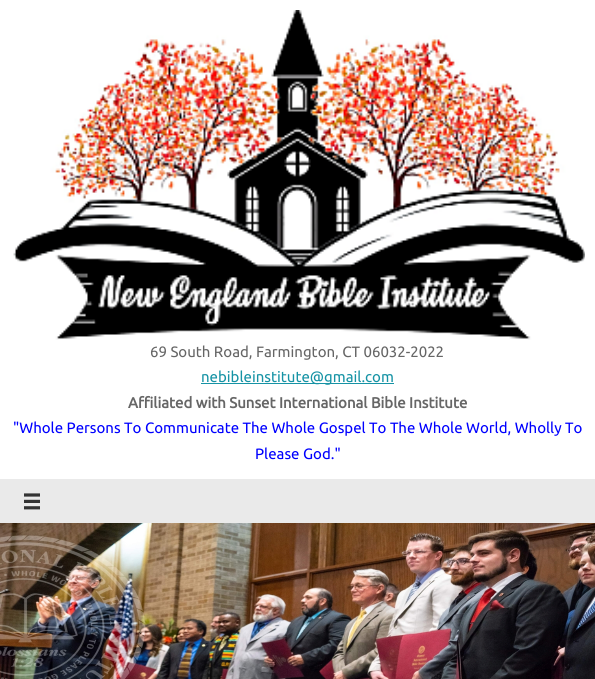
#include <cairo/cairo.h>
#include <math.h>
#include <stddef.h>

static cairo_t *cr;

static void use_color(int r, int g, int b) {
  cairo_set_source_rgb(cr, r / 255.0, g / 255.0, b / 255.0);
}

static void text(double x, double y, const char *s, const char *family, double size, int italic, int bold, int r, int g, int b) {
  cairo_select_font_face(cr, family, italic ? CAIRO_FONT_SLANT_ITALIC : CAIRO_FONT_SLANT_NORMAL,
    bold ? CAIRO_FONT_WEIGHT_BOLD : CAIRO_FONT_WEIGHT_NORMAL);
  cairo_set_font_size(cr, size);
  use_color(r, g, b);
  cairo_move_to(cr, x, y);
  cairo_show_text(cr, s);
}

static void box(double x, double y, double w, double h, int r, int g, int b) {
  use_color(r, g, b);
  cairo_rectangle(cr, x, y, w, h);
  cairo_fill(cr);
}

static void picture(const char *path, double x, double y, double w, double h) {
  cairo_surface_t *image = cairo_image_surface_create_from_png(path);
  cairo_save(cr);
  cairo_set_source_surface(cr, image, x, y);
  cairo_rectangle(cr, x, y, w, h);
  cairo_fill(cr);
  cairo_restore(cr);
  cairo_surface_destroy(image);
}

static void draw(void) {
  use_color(255, 255, 255);
  cairo_paint(cr);
  picture("img_01.png", 13, 10, 572, 330);
  box(201, 383, 193, 1, 22, 147, 165);
  box(0, 479, 595, 44, 234, 234, 234);
  picture("img_02.png", 24, 493, 16, 17);
  picture("img_03.png", 0, 523, 595, 156);
  text(150, 357, "69 South Road, Farmington, CT 06032-2022", "Ubuntu", 15, 0, 0, 102, 102, 102);
  text(201, 382, "nebibleinstitute@gmail.com", "Ubuntu", 15, 0, 0, 22, 147, 165);
  text(128, 408, "Affiliated with Sunset International Bible Institute", "Ubuntu", 15, 0, 1, 102, 102, 102);
  text(13, 433, "\"Whole Persons To Communicate The Whole Gospel To The Whole World, Wholly To", "Ubuntu", 15, 0, 0, 0, 0, 255);
  text(255, 459, "Please God.\"", "Ubuntu", 15, 0, 0, 0, 0, 255);
}

int main(void) {
  cairo_surface_t *surface = cairo_image_surface_create(CAIRO_FORMAT_RGB24, 595, 679);
  cr = cairo_create(surface);
  cairo_font_options_t *options = cairo_font_options_create();
  cairo_font_options_set_hint_metrics(options, CAIRO_HINT_METRICS_OFF);
  cairo_font_options_set_hint_style(options, CAIRO_HINT_STYLE_NONE);
  cairo_set_font_options(cr, options);
  cairo_set_miter_limit(cr, 4);
  draw();
  cairo_surface_write_to_png(surface, "out.png");
  cairo_font_options_destroy(options);
  cairo_destroy(cr);
  cairo_surface_destroy(surface);
  return 0;
}
